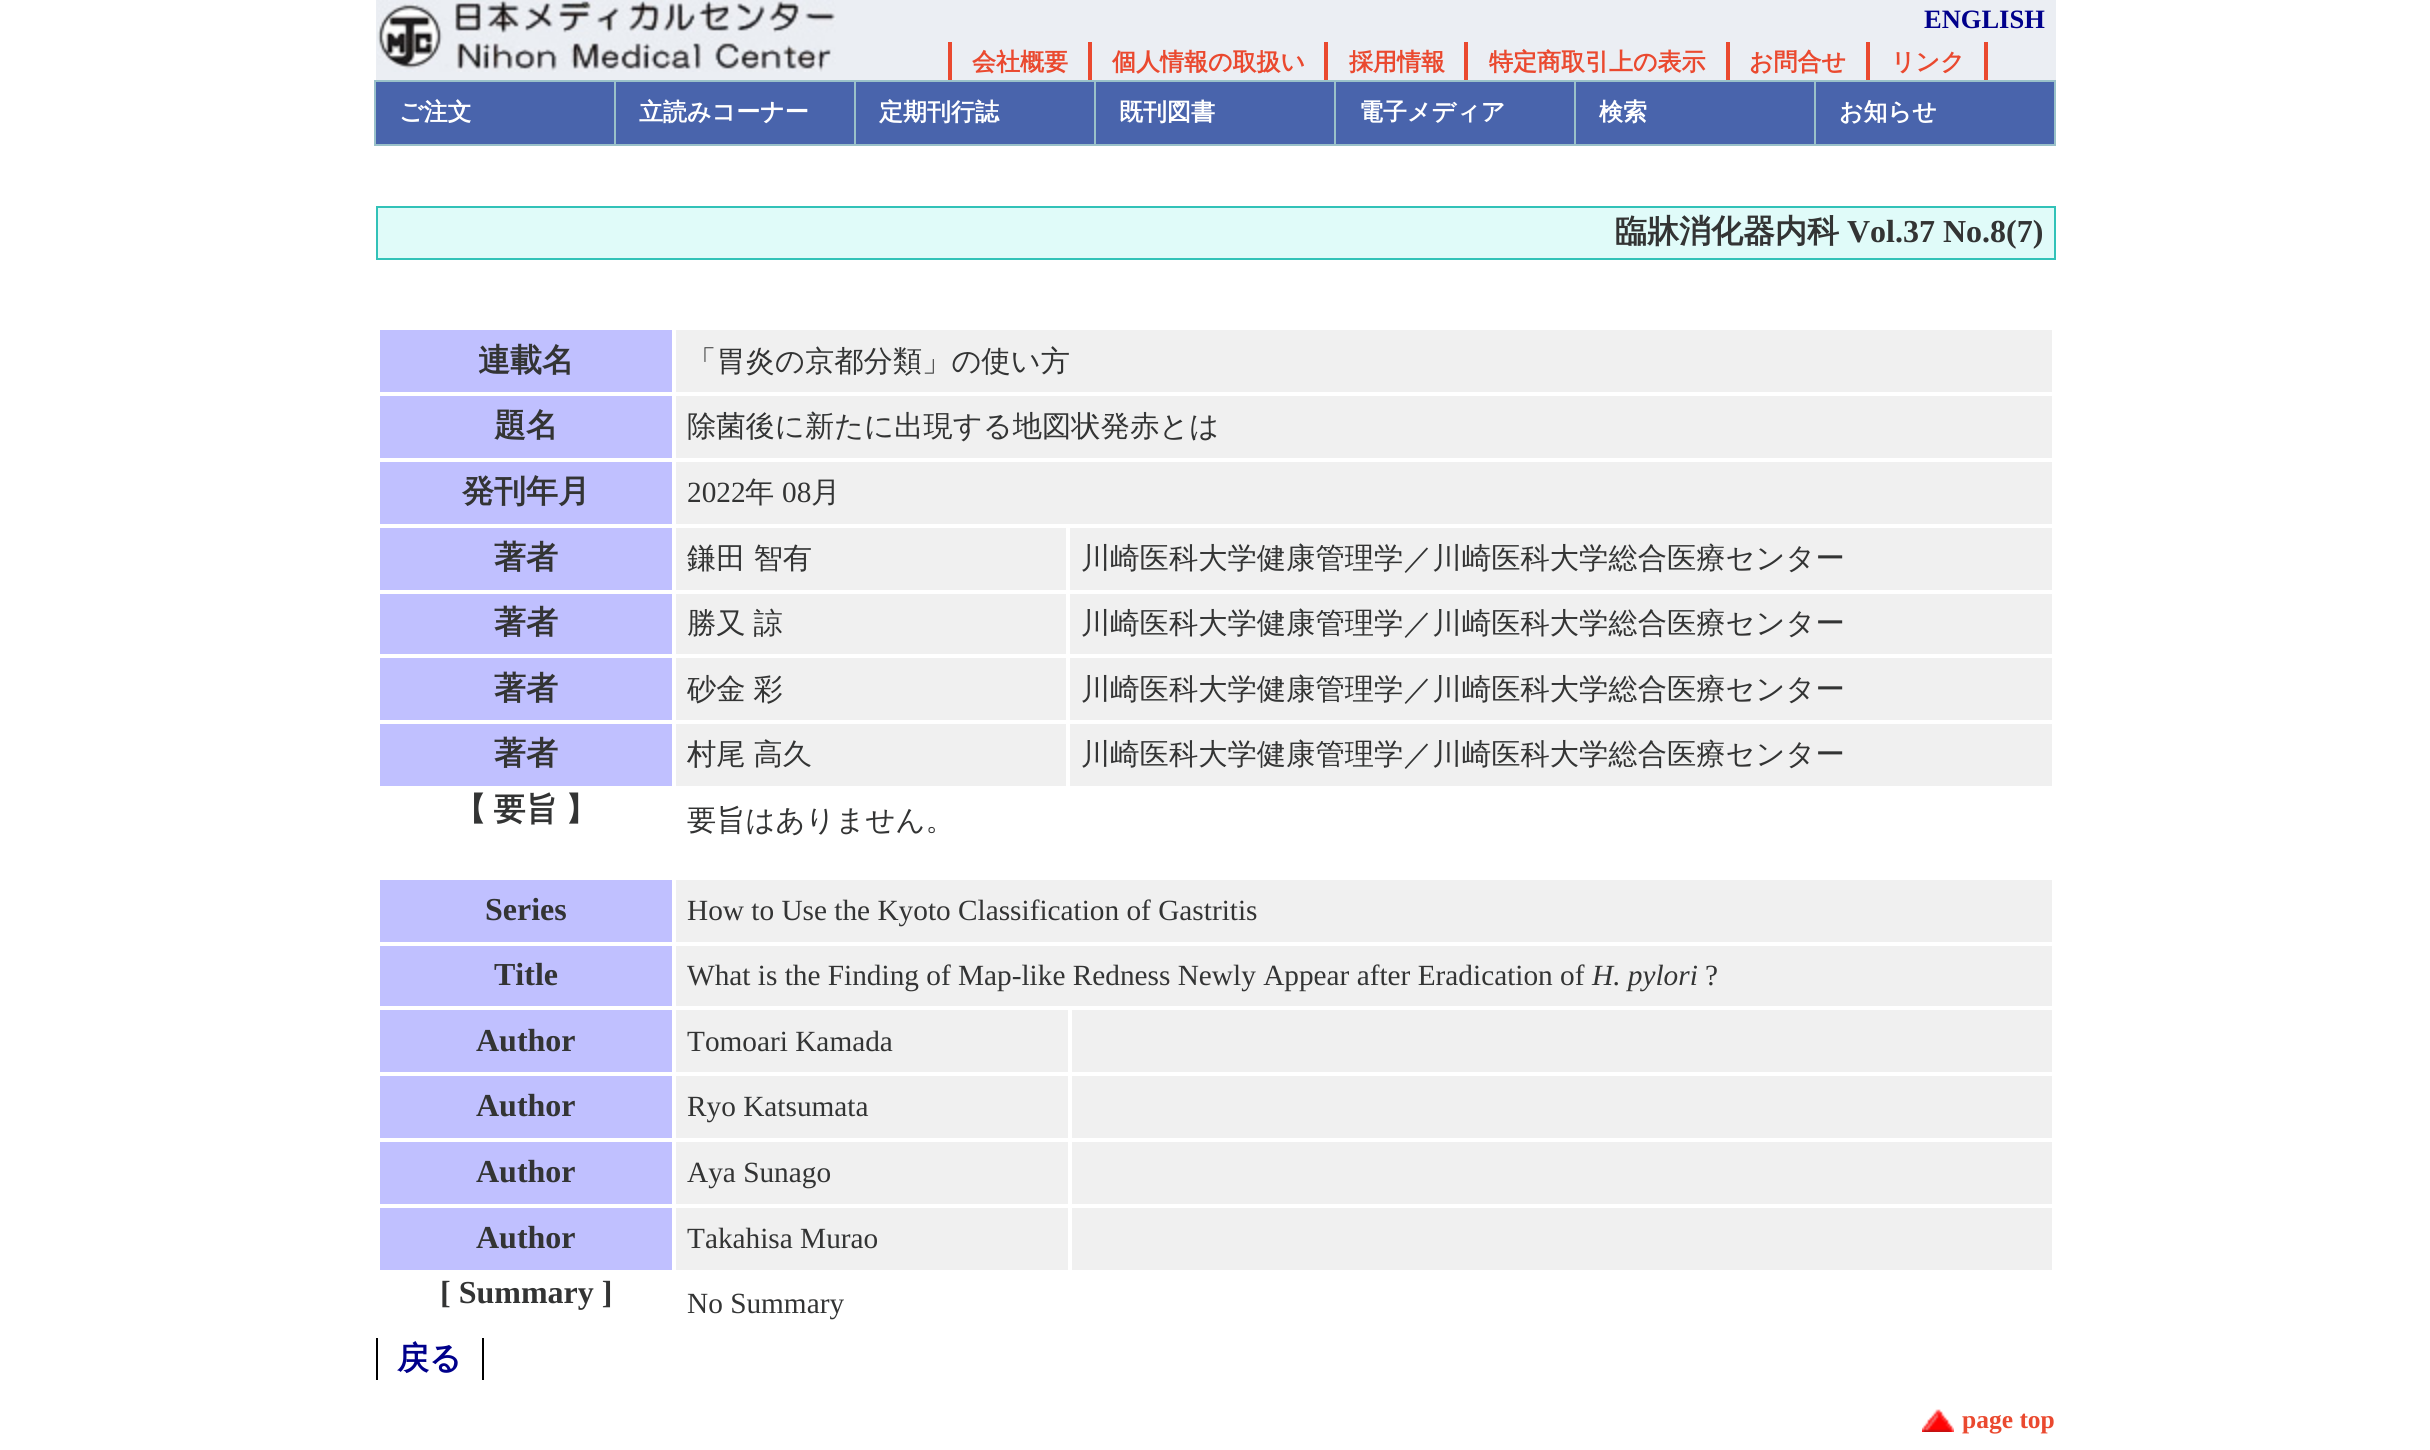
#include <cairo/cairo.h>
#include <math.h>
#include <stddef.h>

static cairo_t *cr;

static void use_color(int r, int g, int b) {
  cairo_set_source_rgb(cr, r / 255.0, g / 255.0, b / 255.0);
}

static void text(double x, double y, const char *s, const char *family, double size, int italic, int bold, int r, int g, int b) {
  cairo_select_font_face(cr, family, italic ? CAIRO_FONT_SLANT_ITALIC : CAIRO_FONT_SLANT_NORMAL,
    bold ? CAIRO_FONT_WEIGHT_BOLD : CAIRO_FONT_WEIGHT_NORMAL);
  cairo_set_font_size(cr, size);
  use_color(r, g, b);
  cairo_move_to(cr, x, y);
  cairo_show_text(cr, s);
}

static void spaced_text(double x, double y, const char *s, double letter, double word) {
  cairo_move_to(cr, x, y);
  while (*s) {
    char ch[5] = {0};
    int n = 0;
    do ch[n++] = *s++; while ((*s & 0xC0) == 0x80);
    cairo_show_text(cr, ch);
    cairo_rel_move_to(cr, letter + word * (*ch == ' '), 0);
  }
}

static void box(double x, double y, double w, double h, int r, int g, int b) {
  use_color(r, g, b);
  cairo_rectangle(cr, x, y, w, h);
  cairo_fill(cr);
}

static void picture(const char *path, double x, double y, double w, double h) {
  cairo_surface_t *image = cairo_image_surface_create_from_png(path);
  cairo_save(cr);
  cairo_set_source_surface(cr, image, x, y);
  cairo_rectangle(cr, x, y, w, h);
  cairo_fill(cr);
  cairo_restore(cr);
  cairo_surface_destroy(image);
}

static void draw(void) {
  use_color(255, 255, 255);
  cairo_paint(cr);
  box(376, 0, 1680, 80, 235, 238, 243);
  picture("img_01.png", 377, 0, 459, 72);
  box(1088, 42, 4, 42, 234, 73, 47);
  box(948, 42, 4, 42, 234, 73, 47);
  box(1324, 42, 4, 42, 234, 73, 47);
  box(1464, 42, 4, 42, 234, 73, 47);
  box(1726, 42, 4, 42, 234, 73, 47);
  box(1866, 42, 4, 42, 234, 73, 47);
  box(1984, 42, 4, 42, 234, 73, 47);
  use_color(73, 100, 172);
  cairo_rectangle(cr, 375, 81, 240, 64);
  cairo_fill_preserve(cr);
  use_color(154, 193, 201);
  cairo_stroke(cr);
  use_color(73, 100, 172);
  cairo_rectangle(cr, 615, 81, 240, 64);
  cairo_fill_preserve(cr);
  use_color(154, 193, 201);
  cairo_stroke(cr);
  use_color(73, 100, 172);
  cairo_rectangle(cr, 855, 81, 240, 64);
  cairo_fill_preserve(cr);
  use_color(154, 193, 201);
  cairo_stroke(cr);
  use_color(73, 100, 172);
  cairo_rectangle(cr, 1095, 81, 240, 64);
  cairo_fill_preserve(cr);
  use_color(154, 193, 201);
  cairo_stroke(cr);
  use_color(73, 100, 172);
  cairo_rectangle(cr, 1335, 81, 240, 64);
  cairo_fill_preserve(cr);
  use_color(154, 193, 201);
  cairo_stroke(cr);
  use_color(73, 100, 172);
  cairo_rectangle(cr, 1575, 81, 240, 64);
  cairo_fill_preserve(cr);
  use_color(154, 193, 201);
  cairo_stroke(cr);
  use_color(73, 100, 172);
  cairo_rectangle(cr, 1815, 81, 240, 64);
  cairo_fill_preserve(cr);
  use_color(154, 193, 201);
  cairo_stroke(cr);
  use_color(224, 251, 249);
  cairo_rectangle(cr, 377, 207, 1678, 52);
  cairo_fill_preserve(cr);
  use_color(50, 194, 184);
  cairo_stroke(cr);
  box(380, 330, 292, 62, 192, 192, 255);
  box(676, 330, 1376, 62, 240, 240, 240);
  box(380, 396, 292, 62, 192, 192, 255);
  box(676, 396, 1376, 62, 240, 240, 240);
  box(380, 462, 292, 62, 192, 192, 255);
  box(676, 462, 1376, 62, 240, 240, 240);
  box(380, 528, 292, 62, 192, 192, 255);
  box(676, 528, 390, 62, 240, 240, 240);
  box(1070, 528, 982, 62, 240, 240, 240);
  box(380, 594, 292, 60, 192, 192, 255);
  box(676, 594, 390, 60, 240, 240, 240);
  box(1070, 594, 982, 60, 240, 240, 240);
  box(380, 658, 292, 62, 192, 192, 255);
  box(676, 658, 390, 62, 240, 240, 240);
  box(1070, 658, 982, 62, 240, 240, 240);
  box(380, 724, 292, 62, 192, 192, 255);
  box(676, 724, 390, 62, 240, 240, 240);
  box(1070, 724, 982, 62, 240, 240, 240);
  box(380, 880, 292, 62, 192, 192, 255);
  box(676, 880, 1376, 62, 240, 240, 240);
  box(380, 946, 292, 60, 192, 192, 255);
  box(676, 946, 1376, 60, 240, 240, 240);
  box(380, 1010, 292, 62, 192, 192, 255);
  box(676, 1010, 392, 62, 240, 240, 240);
  box(1072, 1010, 980, 62, 240, 240, 240);
  box(380, 1076, 292, 62, 192, 192, 255);
  box(676, 1076, 392, 62, 240, 240, 240);
  box(1072, 1076, 980, 62, 240, 240, 240);
  box(380, 1142, 292, 62, 192, 192, 255);
  box(676, 1142, 392, 62, 240, 240, 240);
  box(1072, 1142, 980, 62, 240, 240, 240);
  box(380, 1208, 292, 62, 192, 192, 255);
  box(676, 1208, 392, 62, 240, 240, 240);
  box(1072, 1208, 980, 62, 240, 240, 240);
  box(482, 1338, 2, 42, 0, 0, 0);
  box(376, 1338, 2, 42, 0, 0, 0);
  picture("img_02.png", 1922, 1409, 32, 23);
  text(1924, 28, "ENGLISH", "Liberation Serif", 26.5, 0, 1, 0, 0, 139);
  text(972, 70, "会社概要", "WenQuanYi Zen Hei", 24, 0, 1, 234, 73, 47);
  text(1112, 70, "個人情報の取扱い", "WenQuanYi Zen Hei", 24, 0, 1, 234, 73, 47);
  text(1349, 70, "採用情報", "WenQuanYi Zen Hei", 24, 0, 1, 234, 73, 47);
  text(1489, 70, "特定商取引上の表示", "WenQuanYi Zen Hei", 24, 0, 1, 234, 73, 47);
  text(1749, 70, "お問合せ", "WenQuanYi Zen Hei", 24, 0, 1, 234, 73, 47);
  text(1891, 70, "リンク", "WenQuanYi Zen Hei", 24, 0, 1, 234, 73, 47);
  text(399, 120, "ご注文", "WenQuanYi Zen Hei", 24, 0, 1, 255, 255, 255);
  text(639, 120, "立読みコーナー", "WenQuanYi Zen Hei", 24, 0, 1, 255, 255, 255);
  text(879, 120, "定期刊行誌", "WenQuanYi Zen Hei", 24, 0, 1, 255, 255, 255);
  text(1119, 120, "既刊図書", "WenQuanYi Zen Hei", 24, 0, 1, 255, 255, 255);
  text(1359, 120, "電子メディア", "WenQuanYi Zen Hei", 24, 0, 1, 255, 255, 255);
  text(1599, 120, "検索", "WenQuanYi Zen Hei", 24, 0, 1, 255, 255, 255);
  text(1839, 120, "お知らせ", "WenQuanYi Zen Hei", 24, 0, 1, 255, 255, 255);
  text(1615, 242, "臨牀消化器内科", "WenQuanYi Zen Hei", 32, 0, 1, 51, 52, 52);
  text(1847, 242, "Vol.37 No.8(7)", "Liberation Serif", 32, 0, 1, 51, 52, 52);
  text(478, 371, "連載名", "WenQuanYi Zen Hei", 32, 0, 1, 51, 52, 52);
  text(687, 371, "「胃炎の京都分類」の使い方", "WenQuanYi Zen Hei Medium", 29.3, 0, 0, 51, 52, 52);
  text(494, 436, "題名", "WenQuanYi Zen Hei", 32, 0, 1, 51, 52, 52);
  text(687, 436, "除菌後に新たに出現する地図状発赤とは", "WenQuanYi Zen Hei Medium", 29.3, 0, 0, 51, 52, 52);
  text(462, 502, "発刊年月", "WenQuanYi Zen Hei", 32, 0, 1, 51, 52, 52);
  text(687, 502, "2022", "Liberation Serif", 29.3, 0, 0, 51, 52, 52);
  text(745, 502, "年", "WenQuanYi Zen Hei Medium", 29.3, 0, 0, 51, 52, 52);
  text(782, 502, "08", "Liberation Serif", 29.3, 0, 0, 51, 52, 52);
  text(811, 502, "月", "WenQuanYi Zen Hei Medium", 29.3, 0, 0, 51, 52, 52);
  text(494, 568, "著者", "WenQuanYi Zen Hei", 32, 0, 1, 51, 52, 52);
  cairo_select_font_face(cr, "WenQuanYi Zen Hei Medium", CAIRO_FONT_SLANT_NORMAL, CAIRO_FONT_WEIGHT_NORMAL);
  cairo_set_font_size(cr, 29.3);
  spaced_text(687, 568, "鎌田 智有", 0, -1);
  text(1081, 568, "川崎医科大学健康管理学／川崎医科大学総合医療センター", "WenQuanYi Zen Hei Medium", 29.3, 0, 0, 51, 52, 52);
  text(494, 633, "著者", "WenQuanYi Zen Hei", 32, 0, 1, 51, 52, 52);
  cairo_select_font_face(cr, "WenQuanYi Zen Hei Medium", CAIRO_FONT_SLANT_NORMAL, CAIRO_FONT_WEIGHT_NORMAL);
  cairo_set_font_size(cr, 29.3);
  spaced_text(687, 633, "勝又 諒", 0, -1);
  text(1081, 633, "川崎医科大学健康管理学／川崎医科大学総合医療センター", "WenQuanYi Zen Hei Medium", 29.3, 0, 0, 51, 52, 52);
  text(494, 699, "著者", "WenQuanYi Zen Hei", 32, 0, 1, 51, 52, 52);
  cairo_select_font_face(cr, "WenQuanYi Zen Hei Medium", CAIRO_FONT_SLANT_NORMAL, CAIRO_FONT_WEIGHT_NORMAL);
  cairo_set_font_size(cr, 29.3);
  spaced_text(687, 699, "砂金 彩", 0, -1);
  text(1081, 699, "川崎医科大学健康管理学／川崎医科大学総合医療センター", "WenQuanYi Zen Hei Medium", 29.3, 0, 0, 51, 52, 52);
  text(494, 764, "著者", "WenQuanYi Zen Hei", 32, 0, 1, 51, 52, 52);
  cairo_select_font_face(cr, "WenQuanYi Zen Hei Medium", CAIRO_FONT_SLANT_NORMAL, CAIRO_FONT_WEIGHT_NORMAL);
  cairo_set_font_size(cr, 29.3);
  spaced_text(687, 764, "村尾 高久", 0, -1);
  text(1081, 764, "川崎医科大学健康管理学／川崎医科大学総合医療センター", "WenQuanYi Zen Hei Medium", 29.3, 0, 0, 51, 52, 52);
  cairo_select_font_face(cr, "WenQuanYi Zen Hei", CAIRO_FONT_SLANT_NORMAL, CAIRO_FONT_WEIGHT_BOLD);
  cairo_set_font_size(cr, 32);
  spaced_text(454, 820, "【 要旨 】", 0, -2);
  text(687, 830, "要旨はありません。", "WenQuanYi Zen Hei Medium", 29.3, 0, 0, 51, 52, 52);
  text(485, 920, "Series", "Liberation Serif", 32, 0, 1, 51, 52, 52);
  text(687, 920, "How to Use the Kyoto Classification of Gastritis", "Liberation Serif", 29.3, 0, 0, 51, 52, 52);
  text(494, 985, "Title", "Liberation Serif", 32, 0, 1, 51, 52, 52);
  text(687, 985, "What is the Finding of Map-like Redness Newly Appear after Eradication of", "Liberation Serif", 29.3, 0, 0, 51, 52, 52);
  text(1592, 985, "H. pylori", "Liberation Serif", 29.3, 1, 0, 51, 52, 52);
  text(1705, 985, "?", "Liberation Serif", 29.3, 0, 0, 51, 52, 52);
  text(476, 1051, "Author", "Liberation Serif", 32, 0, 1, 51, 52, 52);
  text(687, 1051, "Tomoari Kamada", "Liberation Serif", 29.3, 0, 0, 51, 52, 52);
  text(476, 1116, "Author", "Liberation Serif", 32, 0, 1, 51, 52, 52);
  text(687, 1116, "Ryo Katsumata", "Liberation Serif", 29.3, 0, 0, 51, 52, 52);
  text(476, 1182, "Author", "Liberation Serif", 32, 0, 1, 51, 52, 52);
  text(687, 1182, "Aya Sunago", "Liberation Serif", 29.3, 0, 0, 51, 52, 52);
  text(476, 1248, "Author", "Liberation Serif", 32, 0, 1, 51, 52, 52);
  text(687, 1248, "Takahisa Murao", "Liberation Serif", 29.3, 0, 0, 51, 52, 52);
  text(440, 1303, "[ Summary ]", "Liberation Serif", 32, 0, 1, 51, 52, 52);
  text(687, 1313, "No Summary", "Liberation Serif", 29.3, 0, 0, 51, 52, 52);
  text(397, 1369, "戻る", "WenQuanYi Zen Hei", 32, 0, 1, 0, 0, 139);
  text(1962, 1428, "page top", "Liberation Serif", 25.5, 0, 1, 234, 73, 47);
}

int main(void) {
  cairo_surface_t *surface = cairo_image_surface_create(CAIRO_FORMAT_RGB24, 2430, 1450);
  cr = cairo_create(surface);
  cairo_font_options_t *options = cairo_font_options_create();
  cairo_font_options_set_hint_metrics(options, CAIRO_HINT_METRICS_OFF);
  cairo_font_options_set_hint_style(options, CAIRO_HINT_STYLE_NONE);
  cairo_set_font_options(cr, options);
  cairo_set_miter_limit(cr, 4);
  draw();
  cairo_surface_write_to_png(surface, "out.png");
  cairo_font_options_destroy(options);
  cairo_destroy(cr);
  cairo_surface_destroy(surface);
  return 0;
}
